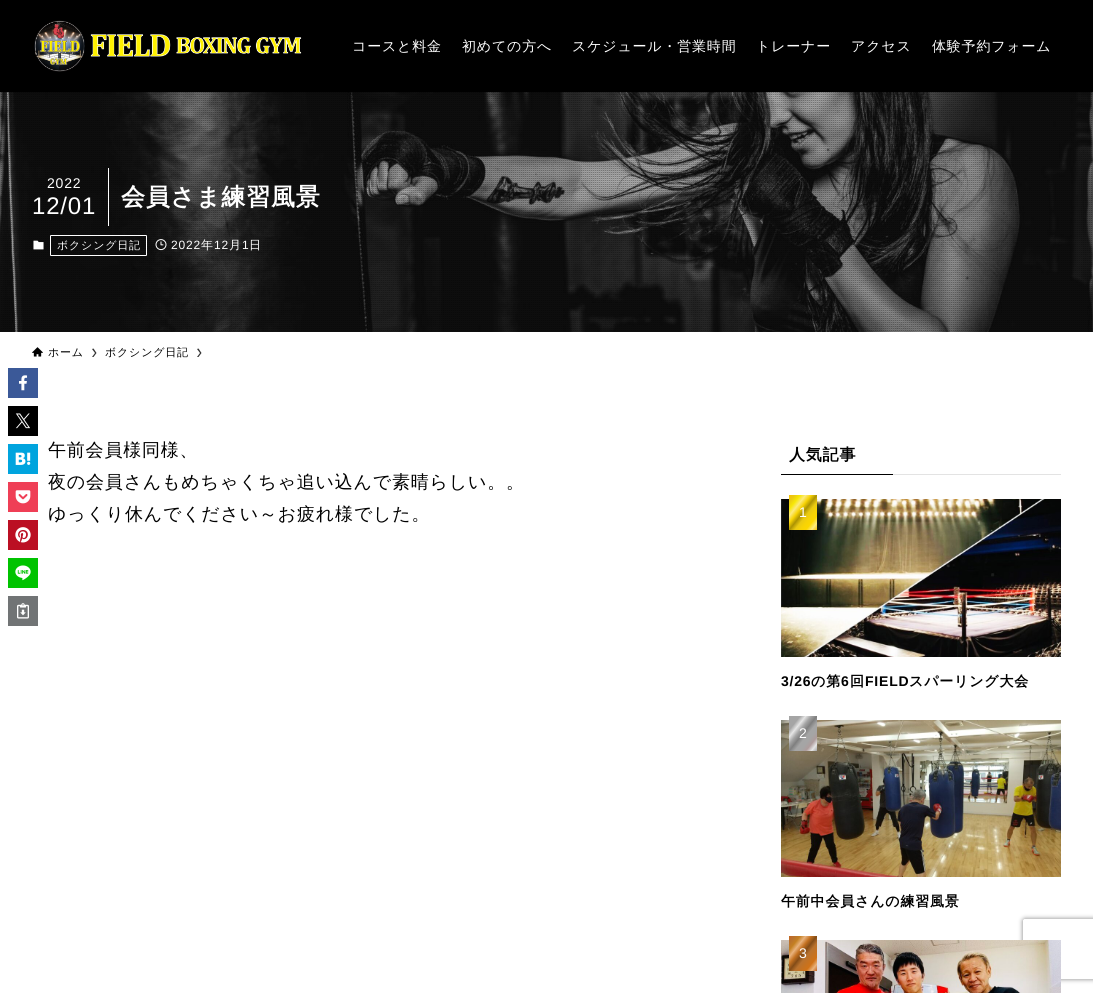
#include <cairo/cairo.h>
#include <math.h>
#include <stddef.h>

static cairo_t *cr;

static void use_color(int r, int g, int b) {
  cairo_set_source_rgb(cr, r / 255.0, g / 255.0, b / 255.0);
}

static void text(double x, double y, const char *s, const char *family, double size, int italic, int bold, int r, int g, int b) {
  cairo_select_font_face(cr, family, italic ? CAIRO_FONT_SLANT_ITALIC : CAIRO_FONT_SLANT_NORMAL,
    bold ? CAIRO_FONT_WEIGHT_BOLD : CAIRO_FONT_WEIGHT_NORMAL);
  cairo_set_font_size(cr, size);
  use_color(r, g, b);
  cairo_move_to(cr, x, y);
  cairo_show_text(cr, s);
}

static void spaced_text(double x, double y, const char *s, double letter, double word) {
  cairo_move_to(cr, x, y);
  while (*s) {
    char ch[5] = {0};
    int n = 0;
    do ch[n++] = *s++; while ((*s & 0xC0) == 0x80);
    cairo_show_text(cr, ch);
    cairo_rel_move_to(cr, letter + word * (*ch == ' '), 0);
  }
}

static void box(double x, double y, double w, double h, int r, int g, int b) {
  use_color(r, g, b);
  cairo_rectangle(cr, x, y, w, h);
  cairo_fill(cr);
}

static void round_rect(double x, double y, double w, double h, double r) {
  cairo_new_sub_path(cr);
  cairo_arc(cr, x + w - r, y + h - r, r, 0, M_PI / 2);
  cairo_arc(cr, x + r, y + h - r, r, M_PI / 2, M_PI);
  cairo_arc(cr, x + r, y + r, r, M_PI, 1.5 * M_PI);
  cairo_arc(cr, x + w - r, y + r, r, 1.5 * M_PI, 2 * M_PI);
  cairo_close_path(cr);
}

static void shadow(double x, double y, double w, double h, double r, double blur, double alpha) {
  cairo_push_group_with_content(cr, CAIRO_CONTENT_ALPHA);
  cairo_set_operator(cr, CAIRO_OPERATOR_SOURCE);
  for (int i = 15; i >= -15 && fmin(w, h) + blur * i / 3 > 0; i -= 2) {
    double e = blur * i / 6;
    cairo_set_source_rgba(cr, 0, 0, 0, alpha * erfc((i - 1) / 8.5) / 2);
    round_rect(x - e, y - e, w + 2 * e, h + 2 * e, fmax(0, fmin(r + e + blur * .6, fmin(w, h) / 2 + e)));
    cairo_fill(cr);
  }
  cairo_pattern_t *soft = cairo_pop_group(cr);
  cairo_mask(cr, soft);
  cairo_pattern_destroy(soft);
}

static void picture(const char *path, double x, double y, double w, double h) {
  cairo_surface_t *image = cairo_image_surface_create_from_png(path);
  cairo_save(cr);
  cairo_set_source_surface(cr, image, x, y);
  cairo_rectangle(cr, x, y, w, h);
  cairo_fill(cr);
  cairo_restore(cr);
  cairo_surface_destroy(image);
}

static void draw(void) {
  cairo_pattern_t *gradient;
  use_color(255, 255, 255);
  cairo_paint(cr);
  picture("img_02.png", 0, 92, 1093, 240);
  picture("img_03.png", 0, 92, 1093, 240);
  use_color(0, 0, 0);
  shadow(0, 1, 1093, 92, 0, 2, 0.12);
  box(0, 0, 1093, 92, 0, 0, 0);
  picture("img_01.png", 34, 20, 268, 52);
  box(108, 168, 1, 58, 255, 255, 255);
  picture("img_04.png", 33, 240, 11, 10);
  round_rect(50.5, 235.5, 96, 20, 0.5);
  cairo_set_line_width(cr, 1);
  cairo_stroke(cr);
  picture("img_05.png", 155, 239, 12, 12);
  picture("img_06.png", 32, 347, 11, 10);
  use_color(51, 51, 51);
  cairo_new_path(cr);
  cairo_move_to(cr, 93.5, 348.5);
  cairo_line_to(cr, 92, 349);
  cairo_line_to(cr, 95, 353);
  cairo_line_to(cr, 92, 357);
  cairo_line_to(cr, 93.5, 357);
  cairo_line_to(cr, 96.5, 353);
  cairo_close_path(cr);
  cairo_fill(cr);
  cairo_new_path(cr);
  cairo_move_to(cr, 198.5, 348.5);
  cairo_line_to(cr, 197, 349);
  cairo_line_to(cr, 200, 353);
  cairo_line_to(cr, 197, 357);
  cairo_line_to(cr, 198.5, 357);
  cairo_line_to(cr, 201.5, 353);
  cairo_close_path(cr);
  cairo_fill(cr);
  box(8, 368, 30, 30, 59, 89, 152);
  picture("img_07.png", 19, 375, 9, 16);
  box(8, 406, 30, 30, 0, 0, 0);
  picture("img_08.png", 15, 413, 15, 16);
  box(8, 444, 30, 30, 0, 164, 222);
  picture("img_09.png", 15, 452, 16, 13);
  box(8, 482, 30, 30, 239, 63, 86);
  picture("img_10.png", 15, 490, 16, 14);
  box(8, 520, 30, 30, 187, 15, 35);
  picture("img_11.png", 15, 527, 16, 16);
  box(8, 558, 30, 30, 0, 195, 0);
  picture("img_12.png", 15, 565, 16, 16);
  box(8, 596, 30, 30, 113, 116, 117);
  picture("img_13.png", 17, 603, 12, 16);
  box(781, 474, 112, 1, 0, 0, 0);
  box(893, 474, 168, 1, 227, 227, 227);
  picture("img_14.png", 781, 499, 280, 158);
  gradient = cairo_pattern_create_linear(820, 526, 786, 499);
  cairo_pattern_add_color_stop_rgba(gradient, 0, 0.969, 0.749, 0.02, 1);
  cairo_pattern_add_color_stop_rgba(gradient, 0.1, 0.988, 0.918, 0.498, 1);
  cairo_pattern_add_color_stop_rgba(gradient, 0.2, 0.988, 0.843, 0, 1);
  cairo_pattern_add_color_stop_rgba(gradient, 0.3, 0.969, 0.827, 0.02, 1);
  cairo_pattern_add_color_stop_rgba(gradient, 0.4, 0.918, 0.792, 0.071, 1);
  cairo_pattern_add_color_stop_rgba(gradient, 0.5, 0.675, 0.576, 0.012, 1);
  cairo_pattern_add_color_stop_rgba(gradient, 0.6, 0.969, 0.827, 0.02, 1);
  cairo_pattern_add_color_stop_rgba(gradient, 0.7, 0.988, 0.918, 0.498, 1);
  cairo_pattern_add_color_stop_rgba(gradient, 0.8, 0.969, 0.906, 0.02, 1);
  cairo_pattern_add_color_stop_rgba(gradient, 0.9, 0.918, 0.792, 0.071, 1);
  cairo_pattern_add_color_stop_rgba(gradient, 1, 0.969, 0.749, 0.02, 1);
  cairo_set_source(cr, gradient);
  cairo_pattern_destroy(gradient);
  cairo_rectangle(cr, 789, 495, 28, 35);
  cairo_fill(cr);
  picture("img_15.png", 781, 720, 280, 157);
  gradient = cairo_pattern_create_linear(820, 747, 786, 720);
  cairo_pattern_add_color_stop_rgba(gradient, 0, 0.647, 0.647, 0.647, 1);
  cairo_pattern_add_color_stop_rgba(gradient, 0.1, 0.898, 0.898, 0.898, 1);
  cairo_pattern_add_color_stop_rgba(gradient, 0.2, 0.682, 0.612, 0.612, 1);
  cairo_pattern_add_color_stop_rgba(gradient, 0.3, 0.647, 0.647, 0.647, 1);
  cairo_pattern_add_color_stop_rgba(gradient, 0.4, 0.647, 0.647, 0.647, 1);
  cairo_pattern_add_color_stop_rgba(gradient, 0.5, 0.498, 0.498, 0.498, 1);
  cairo_pattern_add_color_stop_rgba(gradient, 0.6, 0.647, 0.647, 0.647, 1);
  cairo_pattern_add_color_stop_rgba(gradient, 0.7, 0.898, 0.898, 0.898, 1);
  cairo_pattern_add_color_stop_rgba(gradient, 0.8, 0.647, 0.647, 0.647, 1);
  cairo_pattern_add_color_stop_rgba(gradient, 1, 0.647, 0.647, 0.647, 1);
  cairo_set_source(cr, gradient);
  cairo_pattern_destroy(gradient);
  cairo_rectangle(cr, 789, 716, 28, 35);
  cairo_fill(cr);
  cairo_save(cr);
  cairo_set_fill_rule(cr, CAIRO_FILL_RULE_EVEN_ODD);
  cairo_new_path(cr);
  cairo_move_to(cr, 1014, 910);
  cairo_line_to(cr, 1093, 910);
  cairo_line_to(cr, 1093, 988);
  cairo_line_to(cr, 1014, 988);
  cairo_close_path(cr);
  cairo_move_to(cr, 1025, 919);
  cairo_line_to(cr, 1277, 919);
  cairo_curve_to(cr, 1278, 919, 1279, 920, 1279, 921);
  cairo_line_to(cr, 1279, 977);
  cairo_curve_to(cr, 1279, 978, 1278, 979, 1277, 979);
  cairo_line_to(cr, 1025, 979);
  cairo_curve_to(cr, 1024, 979, 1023, 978, 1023, 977);
  cairo_line_to(cr, 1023, 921);
  cairo_curve_to(cr, 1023, 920, 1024, 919, 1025, 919);
  cairo_close_path(cr);
  cairo_clip(cr);
  use_color(128, 128, 128);
  shadow(1023, 919, 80, 60, 2, 2.5, 1);
  cairo_restore(cr);
  picture("img_16.png", 781, 940, 280, 53);
  gradient = cairo_pattern_create_linear(820, 967, 786, 940);
  cairo_pattern_add_color_stop_rgba(gradient, 0, 0.769, 0.396, 0.133, 1);
  cairo_pattern_add_color_stop_rgba(gradient, 0.1, 0.91, 0.698, 0.49, 1);
  cairo_pattern_add_color_stop_rgba(gradient, 0.2, 0.816, 0.447, 0.09, 1);
  cairo_pattern_add_color_stop_rgba(gradient, 0.3, 0.769, 0.447, 0.133, 1);
  cairo_pattern_add_color_stop_rgba(gradient, 0.4, 0.725, 0.447, 0.18, 1);
  cairo_pattern_add_color_stop_rgba(gradient, 0.5, 0.514, 0.298, 0.09, 1);
  cairo_pattern_add_color_stop_rgba(gradient, 0.6, 0.769, 0.447, 0.133, 1);
  cairo_pattern_add_color_stop_rgba(gradient, 0.7, 0.91, 0.698, 0.49, 1);
  cairo_pattern_add_color_stop_rgba(gradient, 0.8, 0.769, 0.502, 0.133, 1);
  cairo_pattern_add_color_stop_rgba(gradient, 0.9, 0.725, 0.447, 0.18, 1);
  cairo_pattern_add_color_stop_rgba(gradient, 1, 0.769, 0.396, 0.133, 1);
  cairo_set_source(cr, gradient);
  cairo_pattern_destroy(gradient);
  cairo_rectangle(cr, 789, 936, 28, 35);
  cairo_fill(cr);
  cairo_select_font_face(cr, "WenQuanYi Zen Hei Medium", CAIRO_FONT_SLANT_NORMAL, CAIRO_FONT_WEIGHT_NORMAL);
  cairo_set_font_size(cr, 14);
  use_color(255, 255, 255);
  spaced_text(352, 51, "コースと料金", 0.8, 0);
  spaced_text(462, 51, "初めての方へ", 0.8, 0);
  spaced_text(572, 51, "スケジュール・営業時間", 0.8, 0);
  spaced_text(756, 51, "トレーナー", 0.8, 0);
  spaced_text(851, 51, "アクセス", 0.8, 0);
  spaced_text(932, 51, "体験予約フォーム", 0.8, 0);
  cairo_select_font_face(cr, "Liberation Sans", CAIRO_FONT_SLANT_NORMAL, CAIRO_FONT_WEIGHT_NORMAL);
  spaced_text(47, 188, "2022", 0.8, 0);
  cairo_set_font_size(cr, 24);
  spaced_text(32, 214, "12/01", 0.8, 0);
  cairo_select_font_face(cr, "WenQuanYi Zen Hei", CAIRO_FONT_SLANT_NORMAL, CAIRO_FONT_WEIGHT_BOLD);
  spaced_text(121, 205, "会員さま練習風景", 0.8, 0);
  cairo_select_font_face(cr, "WenQuanYi Zen Hei Medium", CAIRO_FONT_SLANT_NORMAL, CAIRO_FONT_WEIGHT_NORMAL);
  cairo_set_font_size(cr, 11);
  spaced_text(57, 249, "ボクシング日記", 0.8, 0);
  cairo_select_font_face(cr, "Liberation Sans", CAIRO_FONT_SLANT_NORMAL, CAIRO_FONT_WEIGHT_NORMAL);
  cairo_set_font_size(cr, 12);
  spaced_text(171, 249, "2022", 0.8, 0);
  cairo_select_font_face(cr, "WenQuanYi Zen Hei Medium", CAIRO_FONT_SLANT_NORMAL, CAIRO_FONT_WEIGHT_NORMAL);
  spaced_text(201, 249, "年", 0.8, 0);
  cairo_select_font_face(cr, "Liberation Sans", CAIRO_FONT_SLANT_NORMAL, CAIRO_FONT_WEIGHT_NORMAL);
  spaced_text(214, 249, "12", 0.8, 0);
  cairo_select_font_face(cr, "WenQuanYi Zen Hei Medium", CAIRO_FONT_SLANT_NORMAL, CAIRO_FONT_WEIGHT_NORMAL);
  spaced_text(229, 249, "月", 0.8, 0);
  cairo_select_font_face(cr, "Liberation Sans", CAIRO_FONT_SLANT_NORMAL, CAIRO_FONT_WEIGHT_NORMAL);
  spaced_text(242, 249, "1", 0.8, 0);
  cairo_select_font_face(cr, "WenQuanYi Zen Hei Medium", CAIRO_FONT_SLANT_NORMAL, CAIRO_FONT_WEIGHT_NORMAL);
  spaced_text(249, 249, "日", 0.8, 0);
  cairo_set_font_size(cr, 11);
  use_color(0, 0, 0);
  spaced_text(48, 356, "ホーム", 0.8, 0);
  spaced_text(105, 356, "ボクシング日記", 0.8, 0);
  cairo_set_font_size(cr, 18);
  spaced_text(48, 456, "午前会員様同様、", 0.8, 0);
  spaced_text(48, 488, "夜の会員さんもめちゃくちゃ追い込んで素晴らしい。。", 0.8, 0);
  spaced_text(48, 520, "ゆっくり休んでください～お疲れ様でした。", 0.8, 0);
  cairo_select_font_face(cr, "WenQuanYi Zen Hei", CAIRO_FONT_SLANT_NORMAL, CAIRO_FONT_WEIGHT_BOLD);
  cairo_set_font_size(cr, 16);
  spaced_text(789, 460, "人気記事", 0.8, 0);
  text(799, 517, "1", "Liberation Sans", 14, 0, 0, 255, 255, 255);
  cairo_select_font_face(cr, "Liberation Sans", CAIRO_FONT_SLANT_NORMAL, CAIRO_FONT_WEIGHT_BOLD);
  use_color(0, 0, 0);
  spaced_text(781, 686, "3/26", 0.8, 0);
  cairo_select_font_face(cr, "WenQuanYi Zen Hei", CAIRO_FONT_SLANT_NORMAL, CAIRO_FONT_WEIGHT_BOLD);
  spaced_text(811, 686, "の第", 0.8, 0);
  cairo_select_font_face(cr, "Liberation Sans", CAIRO_FONT_SLANT_NORMAL, CAIRO_FONT_WEIGHT_BOLD);
  spaced_text(841, 686, "6", 0.8, 0);
  cairo_select_font_face(cr, "WenQuanYi Zen Hei", CAIRO_FONT_SLANT_NORMAL, CAIRO_FONT_WEIGHT_BOLD);
  spaced_text(850, 686, "回", 0.8, 0);
  cairo_select_font_face(cr, "Liberation Sans", CAIRO_FONT_SLANT_NORMAL, CAIRO_FONT_WEIGHT_BOLD);
  spaced_text(865, 686, "FIELD", 0.8, 0);
  cairo_select_font_face(cr, "WenQuanYi Zen Hei", CAIRO_FONT_SLANT_NORMAL, CAIRO_FONT_WEIGHT_BOLD);
  spaced_text(909, 686, "スパーリング大会", 0.8, 0);
  text(799, 738, "2", "Liberation Sans", 14, 0, 0, 255, 255, 255);
  cairo_select_font_face(cr, "WenQuanYi Zen Hei", CAIRO_FONT_SLANT_NORMAL, CAIRO_FONT_WEIGHT_BOLD);
  use_color(0, 0, 0);
  spaced_text(781, 906, "午前中会員さんの練習風景", 0.8, 0);
  text(799, 958, "3", "Liberation Sans", 14, 0, 0, 255, 255, 255);
}

int main(void) {
  cairo_surface_t *surface = cairo_image_surface_create(CAIRO_FORMAT_RGB24, 1093, 993);
  cr = cairo_create(surface);
  cairo_font_options_t *options = cairo_font_options_create();
  cairo_font_options_set_hint_metrics(options, CAIRO_HINT_METRICS_OFF);
  cairo_font_options_set_hint_style(options, CAIRO_HINT_STYLE_NONE);
  cairo_set_font_options(cr, options);
  cairo_set_miter_limit(cr, 4);
  draw();
  cairo_surface_write_to_png(surface, "out.png");
  cairo_font_options_destroy(options);
  cairo_destroy(cr);
  cairo_surface_destroy(surface);
  return 0;
}
